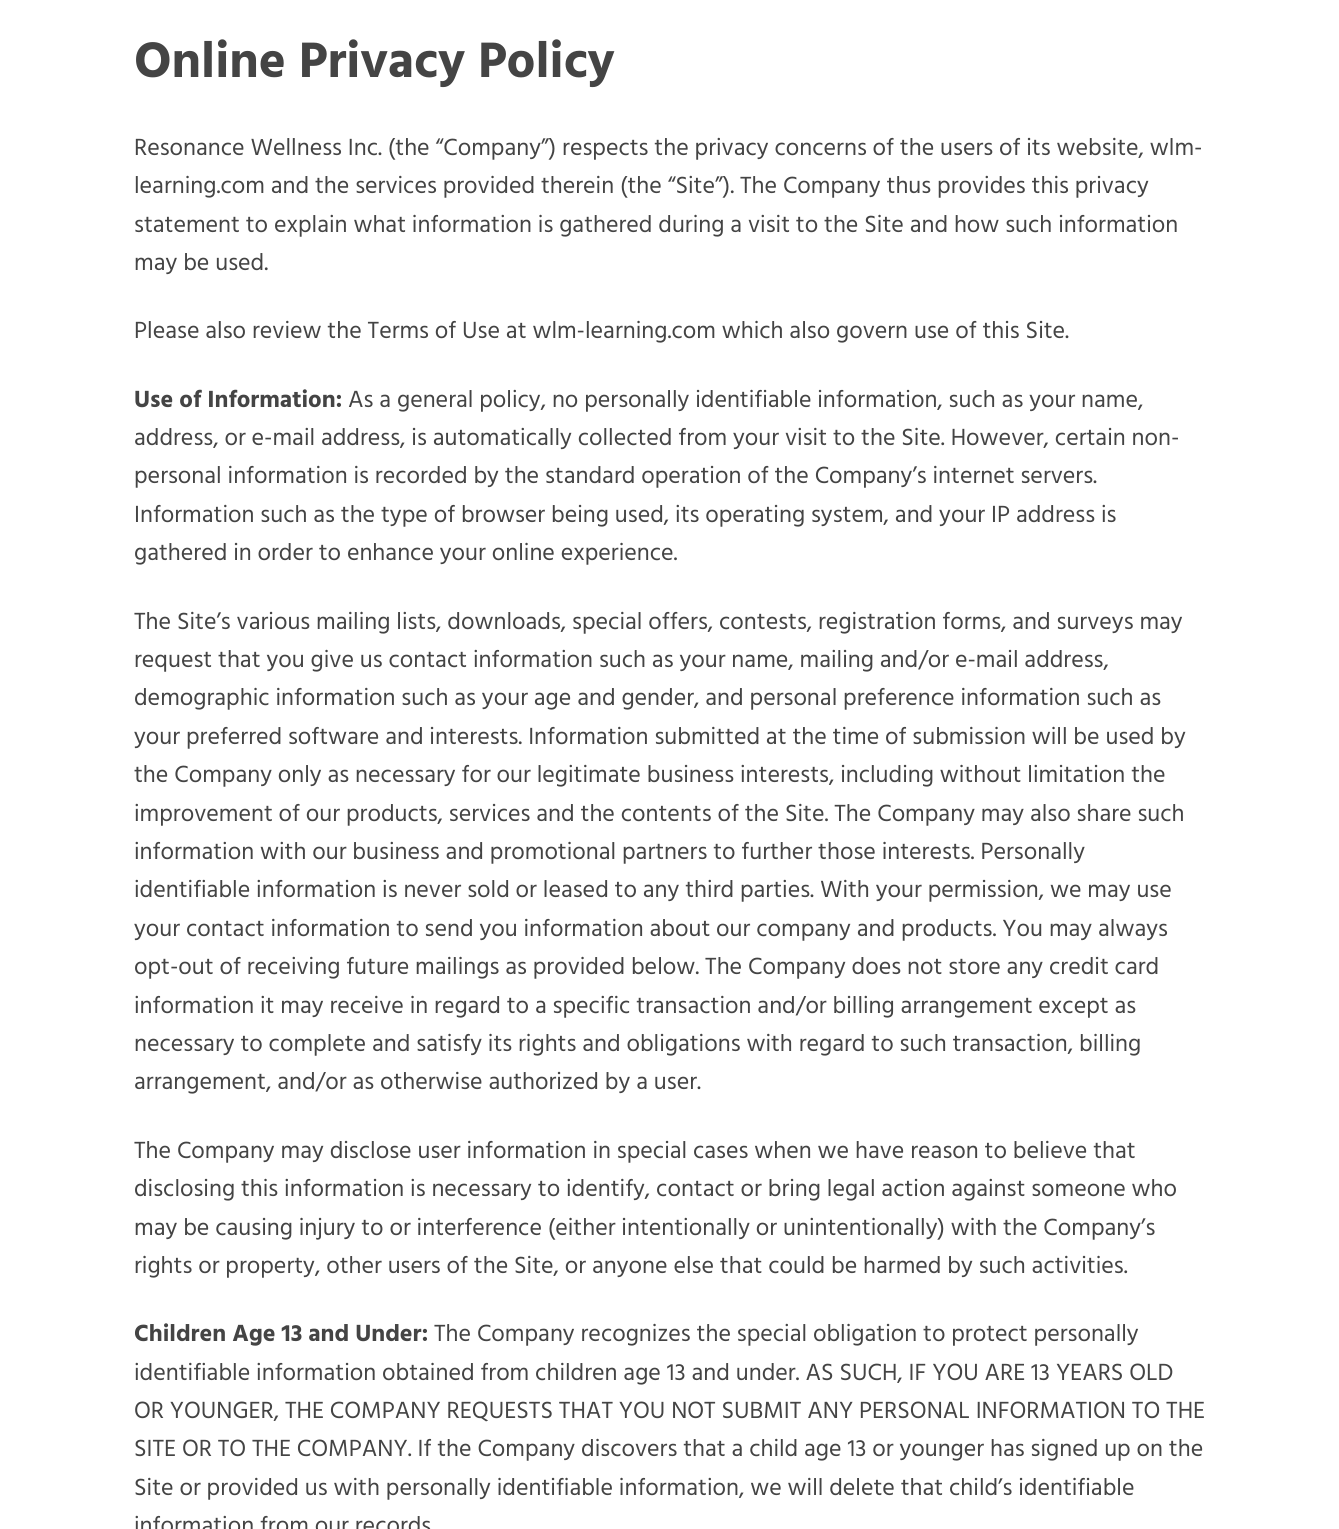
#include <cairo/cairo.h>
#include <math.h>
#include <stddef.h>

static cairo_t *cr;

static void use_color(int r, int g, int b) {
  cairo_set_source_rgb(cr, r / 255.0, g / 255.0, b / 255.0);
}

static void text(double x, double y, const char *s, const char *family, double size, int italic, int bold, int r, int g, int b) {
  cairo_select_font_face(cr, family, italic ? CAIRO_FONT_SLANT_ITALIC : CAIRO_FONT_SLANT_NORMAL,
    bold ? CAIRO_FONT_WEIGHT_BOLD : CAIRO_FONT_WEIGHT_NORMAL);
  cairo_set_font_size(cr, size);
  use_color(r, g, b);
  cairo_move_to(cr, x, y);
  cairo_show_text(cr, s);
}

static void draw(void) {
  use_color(255, 255, 255);
  cairo_paint(cr);
  text(134, 77, "Online Privacy Policy", "Hind Madurai", 51, 0, 1, 68, 68, 68);
  text(134, 155, "Resonance Wellness Inc. (the “Company”) respects the privacy concerns of the users of its website, wlm-", "Hind Madurai", 24, 0, 0, 68, 68, 68);
  text(134, 193, "learning.com and the services provided therein (the “Site”). The Company thus provides this privacy", "Hind Madurai", 24, 0, 0, 68, 68, 68);
  text(134, 232, "statement to explain what information is gathered during a visit to the Site and how such information", "Hind Madurai", 24, 0, 0, 68, 68, 68);
  text(134, 270, "may be used.", "Hind Madurai", 24, 0, 0, 68, 68, 68);
  text(134, 338, "Please also review the Terms of Use at wlm-learning.com which also govern use of this Site.", "Hind Madurai", 24, 0, 0, 68, 68, 68);
  text(134, 407, "Use of Information:", "Hind Madurai", 24, 0, 1, 68, 68, 68);
  text(348, 407, "As a general policy, no personally identifiable information, such as your name,", "Hind Madurai", 24, 0, 0, 68, 68, 68);
  text(134, 445, "address, or e-mail address, is automatically collected from your visit to the Site. However, certain non-", "Hind Madurai", 24, 0, 0, 68, 68, 68);
  text(134, 483, "personal information is recorded by the standard operation of the Company’s internet servers.", "Hind Madurai", 24, 0, 0, 68, 68, 68);
  text(134, 522, "Information such as the type of browser being used, its operating system, and your IP address is", "Hind Madurai", 24, 0, 0, 68, 68, 68);
  text(134, 560, "gathered in order to enhance your online experience.", "Hind Madurai", 24, 0, 0, 68, 68, 68);
  text(134, 629, "The Site’s various mailing lists, downloads, special offers, contests, registration forms, and surveys may", "Hind Madurai", 24, 0, 0, 68, 68, 68);
  text(134, 667, "request that you give us contact information such as your name, mailing and/or e-mail address,", "Hind Madurai", 24, 0, 0, 68, 68, 68);
  text(134, 705, "demographic information such as your age and gender, and personal preference information such as", "Hind Madurai", 24, 0, 0, 68, 68, 68);
  text(134, 744, "your preferred software and interests. Information submitted at the time of submission will be used by", "Hind Madurai", 24, 0, 0, 68, 68, 68);
  text(134, 782, "the Company only as necessary for our legitimate business interests, including without limitation the", "Hind Madurai", 24, 0, 0, 68, 68, 68);
  text(134, 821, "improvement of our products, services and the contents of the Site. The Company may also share such", "Hind Madurai", 24, 0, 0, 68, 68, 68);
  text(134, 859, "information with our business and promotional partners to further those interests. Personally", "Hind Madurai", 24, 0, 0, 68, 68, 68);
  text(134, 897, "identifiable information is never sold or leased to any third parties. With your permission, we may use", "Hind Madurai", 24, 0, 0, 68, 68, 68);
  text(134, 936, "your contact information to send you information about our company and products. You may always", "Hind Madurai", 24, 0, 0, 68, 68, 68);
  text(134, 974, "opt-out of receiving future mailings as provided below. The Company does not store any credit card", "Hind Madurai", 24, 0, 0, 68, 68, 68);
  text(134, 1013, "information it may receive in regard to a specific transaction and/or billing arrangement except as", "Hind Madurai", 24, 0, 0, 68, 68, 68);
  text(134, 1051, "necessary to complete and satisfy its rights and obligations with regard to such transaction, billing", "Hind Madurai", 24, 0, 0, 68, 68, 68);
  text(134, 1089, "arrangement, and/or as otherwise authorized by a user.", "Hind Madurai", 24, 0, 0, 68, 68, 68);
  text(134, 1158, "The Company may disclose user information in special cases when we have reason to believe that", "Hind Madurai", 24, 0, 0, 68, 68, 68);
  text(134, 1196, "disclosing this information is necessary to identify, contact or bring legal action against someone who", "Hind Madurai", 24, 0, 0, 68, 68, 68);
  text(134, 1235, "may be causing injury to or interference (either intentionally or unintentionally) with the Company’s", "Hind Madurai", 24, 0, 0, 68, 68, 68);
  text(134, 1273, "rights or property, other users of the Site, or anyone else that could be harmed by such activities.", "Hind Madurai", 24, 0, 0, 68, 68, 68);
  text(134, 1341, "Children Age 13 and Under:", "Hind Madurai", 24, 0, 1, 68, 68, 68);
  text(434, 1341, "The Company recognizes the special obligation to protect personally", "Hind Madurai", 24, 0, 0, 68, 68, 68);
  text(134, 1380, "identifiable information obtained from children age 13 and under. AS SUCH, IF YOU ARE 13 YEARS OLD", "Hind Madurai", 24, 0, 0, 68, 68, 68);
  text(134, 1418, "OR YOUNGER, THE COMPANY REQUESTS THAT YOU NOT SUBMIT ANY PERSONAL INFORMATION TO THE", "Hind Madurai", 24, 0, 0, 68, 68, 68);
  text(134, 1456, "SITE OR TO THE COMPANY. If the Company discovers that a child age 13 or younger has signed up on the", "Hind Madurai", 24, 0, 0, 68, 68, 68);
  text(134, 1495, "Site or provided us with personally identifiable information, we will delete that child’s identifiable", "Hind Madurai", 24, 0, 0, 68, 68, 68);
  text(134, 1533, "information from our records", "Hind Madurai", 24, 0, 0, 68, 68, 68);
}

int main(void) {
  cairo_surface_t *surface = cairo_image_surface_create(CAIRO_FORMAT_RGB24, 1339, 1529);
  cr = cairo_create(surface);
  cairo_font_options_t *options = cairo_font_options_create();
  cairo_font_options_set_hint_metrics(options, CAIRO_HINT_METRICS_OFF);
  cairo_font_options_set_hint_style(options, CAIRO_HINT_STYLE_NONE);
  cairo_set_font_options(cr, options);
  cairo_set_miter_limit(cr, 4);
  draw();
  cairo_surface_write_to_png(surface, "out.png");
  cairo_font_options_destroy(options);
  cairo_destroy(cr);
  cairo_surface_destroy(surface);
  return 0;
}
